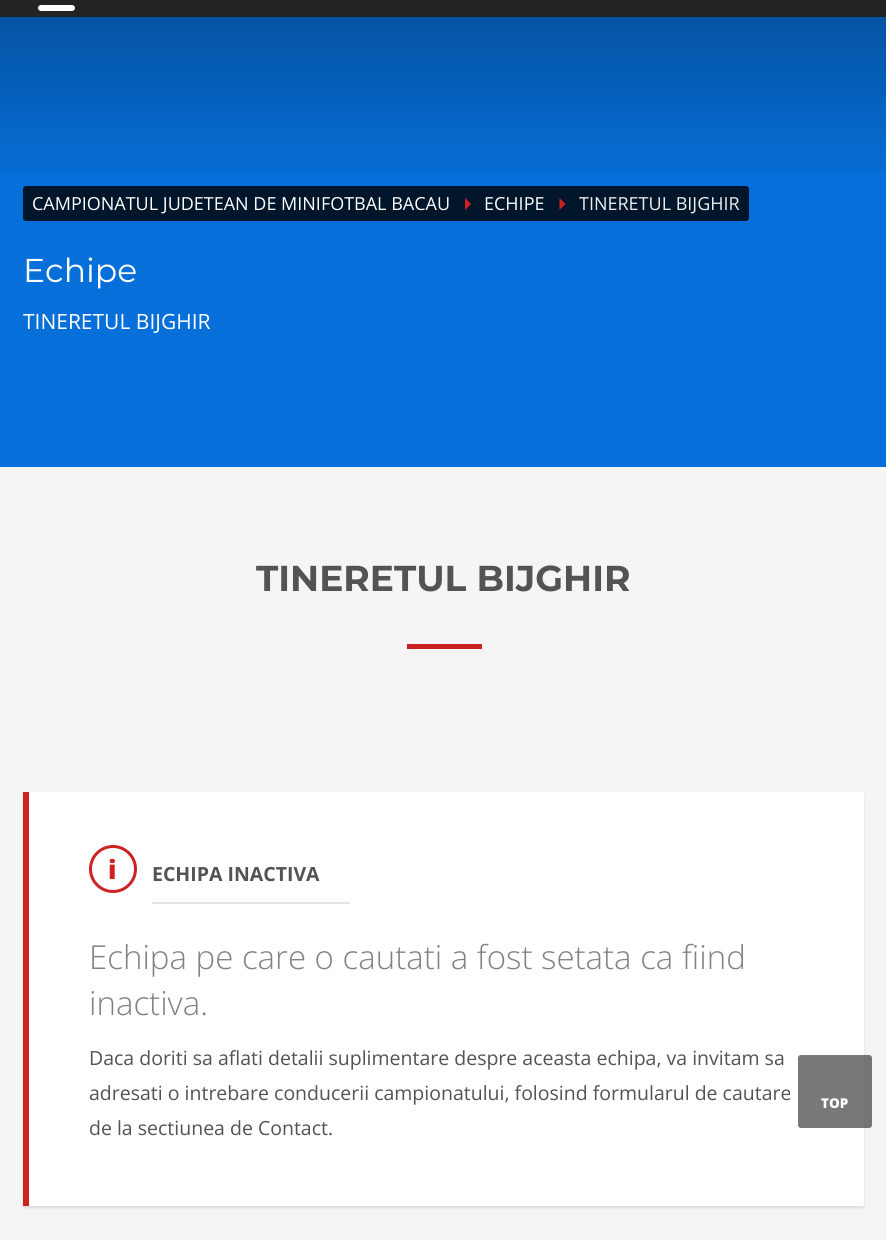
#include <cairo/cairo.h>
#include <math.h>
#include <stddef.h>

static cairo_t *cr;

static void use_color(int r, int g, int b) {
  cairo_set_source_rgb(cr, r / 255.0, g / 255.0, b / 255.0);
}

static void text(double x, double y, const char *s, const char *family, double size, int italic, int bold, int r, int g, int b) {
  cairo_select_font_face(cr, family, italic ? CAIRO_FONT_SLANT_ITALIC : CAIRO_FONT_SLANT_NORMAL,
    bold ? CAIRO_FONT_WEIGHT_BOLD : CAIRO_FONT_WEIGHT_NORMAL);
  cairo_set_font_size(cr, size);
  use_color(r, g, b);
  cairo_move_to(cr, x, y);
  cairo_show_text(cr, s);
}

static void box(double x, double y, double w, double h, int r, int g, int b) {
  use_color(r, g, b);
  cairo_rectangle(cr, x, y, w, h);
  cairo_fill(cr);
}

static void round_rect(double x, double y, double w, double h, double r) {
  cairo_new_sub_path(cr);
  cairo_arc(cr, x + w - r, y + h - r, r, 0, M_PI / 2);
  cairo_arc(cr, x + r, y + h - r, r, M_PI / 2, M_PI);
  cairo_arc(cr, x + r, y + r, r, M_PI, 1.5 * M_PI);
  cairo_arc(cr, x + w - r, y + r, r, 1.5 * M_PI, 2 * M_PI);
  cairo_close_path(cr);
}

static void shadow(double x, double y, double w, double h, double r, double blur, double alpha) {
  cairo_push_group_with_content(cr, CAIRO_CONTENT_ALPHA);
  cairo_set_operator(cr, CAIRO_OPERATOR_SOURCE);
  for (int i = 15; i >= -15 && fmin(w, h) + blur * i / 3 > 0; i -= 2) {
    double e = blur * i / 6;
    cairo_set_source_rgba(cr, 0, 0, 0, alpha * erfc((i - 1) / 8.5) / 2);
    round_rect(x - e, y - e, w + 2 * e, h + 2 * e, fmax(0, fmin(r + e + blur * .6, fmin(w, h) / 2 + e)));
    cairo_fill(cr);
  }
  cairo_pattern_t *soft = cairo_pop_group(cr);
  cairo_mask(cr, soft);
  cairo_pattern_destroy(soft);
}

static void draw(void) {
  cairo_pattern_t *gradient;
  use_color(245, 245, 245);
  cairo_paint(cr);
  box(0, 0, 886, 17, 47, 47, 47);
  box(0, 17, 886, 450, 6, 111, 217);
  gradient = cairo_pattern_create_linear(443, -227, 443, 186);
  cairo_pattern_add_color_stop_rgba(gradient, 0, 0, 0, 0, 0.6);
  cairo_pattern_add_color_stop_rgba(gradient, 1, 0, 0, 0, 0);
  cairo_set_source(cr, gradient);
  cairo_pattern_destroy(gradient);
  cairo_rectangle(cr, 0, 0, 886, 171);
  cairo_fill(cr);
  use_color(255, 255, 255);
  round_rect(38, 5, 37, 6, 3);
  cairo_fill(cr);
  use_color(1, 22, 43);
  round_rect(23, 186, 726, 35, 3);
  cairo_fill(cr);
  use_color(205, 33, 34);
  cairo_new_path(cr);
  cairo_move_to(cr, 465, 210);
  cairo_line_to(cr, 465, 198);
  cairo_line_to(cr, 471, 204);
  cairo_close_path(cr);
  cairo_fill(cr);
  cairo_new_path(cr);
  cairo_move_to(cr, 559.5, 210);
  cairo_line_to(cr, 559.5, 198);
  cairo_line_to(cr, 565.5, 204);
  cairo_close_path(cr);
  cairo_fill(cr);
  box(407, 644, 75, 5, 205, 33, 34);
  box(29, 792, 835, 414, 255, 255, 255);
  cairo_save(cr);
  cairo_set_fill_rule(cr, CAIRO_FILL_RULE_EVEN_ODD);
  cairo_new_path(cr);
  cairo_move_to(cr, 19, 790);
  cairo_line_to(cr, 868, 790);
  cairo_line_to(cr, 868, 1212);
  cairo_line_to(cr, 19, 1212);
  cairo_close_path(cr);
  cairo_move_to(cr, 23, 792);
  cairo_line_to(cr, 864, 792);
  cairo_line_to(cr, 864, 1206);
  cairo_line_to(cr, 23, 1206);
  cairo_close_path(cr);
  cairo_clip(cr);
  use_color(0, 0, 0);
  shadow(23, 794, 841, 414, 0, 1, 0.1);
  cairo_restore(cr);
  box(23, 792, 6, 414, 205, 33, 34);
  box(152, 902, 198, 2, 228, 228, 228);
  cairo_arc(cr, 113, 869, 22.5, 0, 2 * M_PI);
  use_color(205, 33, 34);
  cairo_set_line_width(cr, 3);
  cairo_stroke(cr);
  cairo_set_source_rgba(cr, 0.251, 0.251, 0.251, 0.7);
  round_rect(798, 1055, 74, 73, 3);
  cairo_fill(cr);
  text(32, 210, "CAMPIONATUL JUDETEAN DE MINIFOTBAL BACAU", "Open Sans", 18, 0, 0, 255, 255, 255);
  text(484, 210, "ECHIPE", "Open Sans", 18, 0, 0, 255, 255, 255);
  text(579, 210, "TINERETUL BIJGHIR", "Open Sans", 18, 0, 0, 238, 238, 238);
  text(23, 282, "Echipe", "Montserrat", 33, 0, 0, 255, 255, 255);
  text(23, 329, "TINERETUL BIJGHIR", "Open Sans", 21, 0, 0, 255, 255, 255);
  text(256, 591, "TINERETUL BIJGHIR", "Montserrat", 36, 0, 1, 83, 83, 83);
  text(108, 879, "i", "Open Sans ExtraBold", 26, 0, 0, 205, 33, 34);
  text(152, 881, "ECHIPA INACTIVA", "Open Sans", 19.5, 0, 1, 83, 83, 83);
  text(89, 969, "Echipa pe care o cautati a fost setata ca fiind", "Open Sans Light", 33, 0, 0, 130, 130, 130);
  text(89, 1015, "inactiva.", "Open Sans Light", 33, 0, 0, 130, 130, 130);
  text(89, 1065, "Daca doriti sa aflati detalii suplimentare despre aceasta echipa, va invitam sa", "Open Sans", 19.5, 0, 0, 83, 83, 83);
  text(89, 1100, "adresati o intrebare conducerii campionatului, folosind formularul de cautare", "Open Sans", 19.5, 0, 0, 83, 83, 83);
  text(89, 1135, "de la sectiunea de Contact.", "Open Sans", 19.5, 0, 0, 83, 83, 83);
  text(821, 1108, "TOP", "Open Sans ExtraBold", 13.5, 0, 0, 255, 255, 255);
}

int main(void) {
  cairo_surface_t *surface = cairo_image_surface_create(CAIRO_FORMAT_RGB24, 886, 1240);
  cr = cairo_create(surface);
  cairo_font_options_t *options = cairo_font_options_create();
  cairo_font_options_set_hint_metrics(options, CAIRO_HINT_METRICS_OFF);
  cairo_font_options_set_hint_style(options, CAIRO_HINT_STYLE_NONE);
  cairo_set_font_options(cr, options);
  cairo_set_miter_limit(cr, 4);
  draw();
  cairo_surface_write_to_png(surface, "out.png");
  cairo_font_options_destroy(options);
  cairo_destroy(cr);
  cairo_surface_destroy(surface);
  return 0;
}
